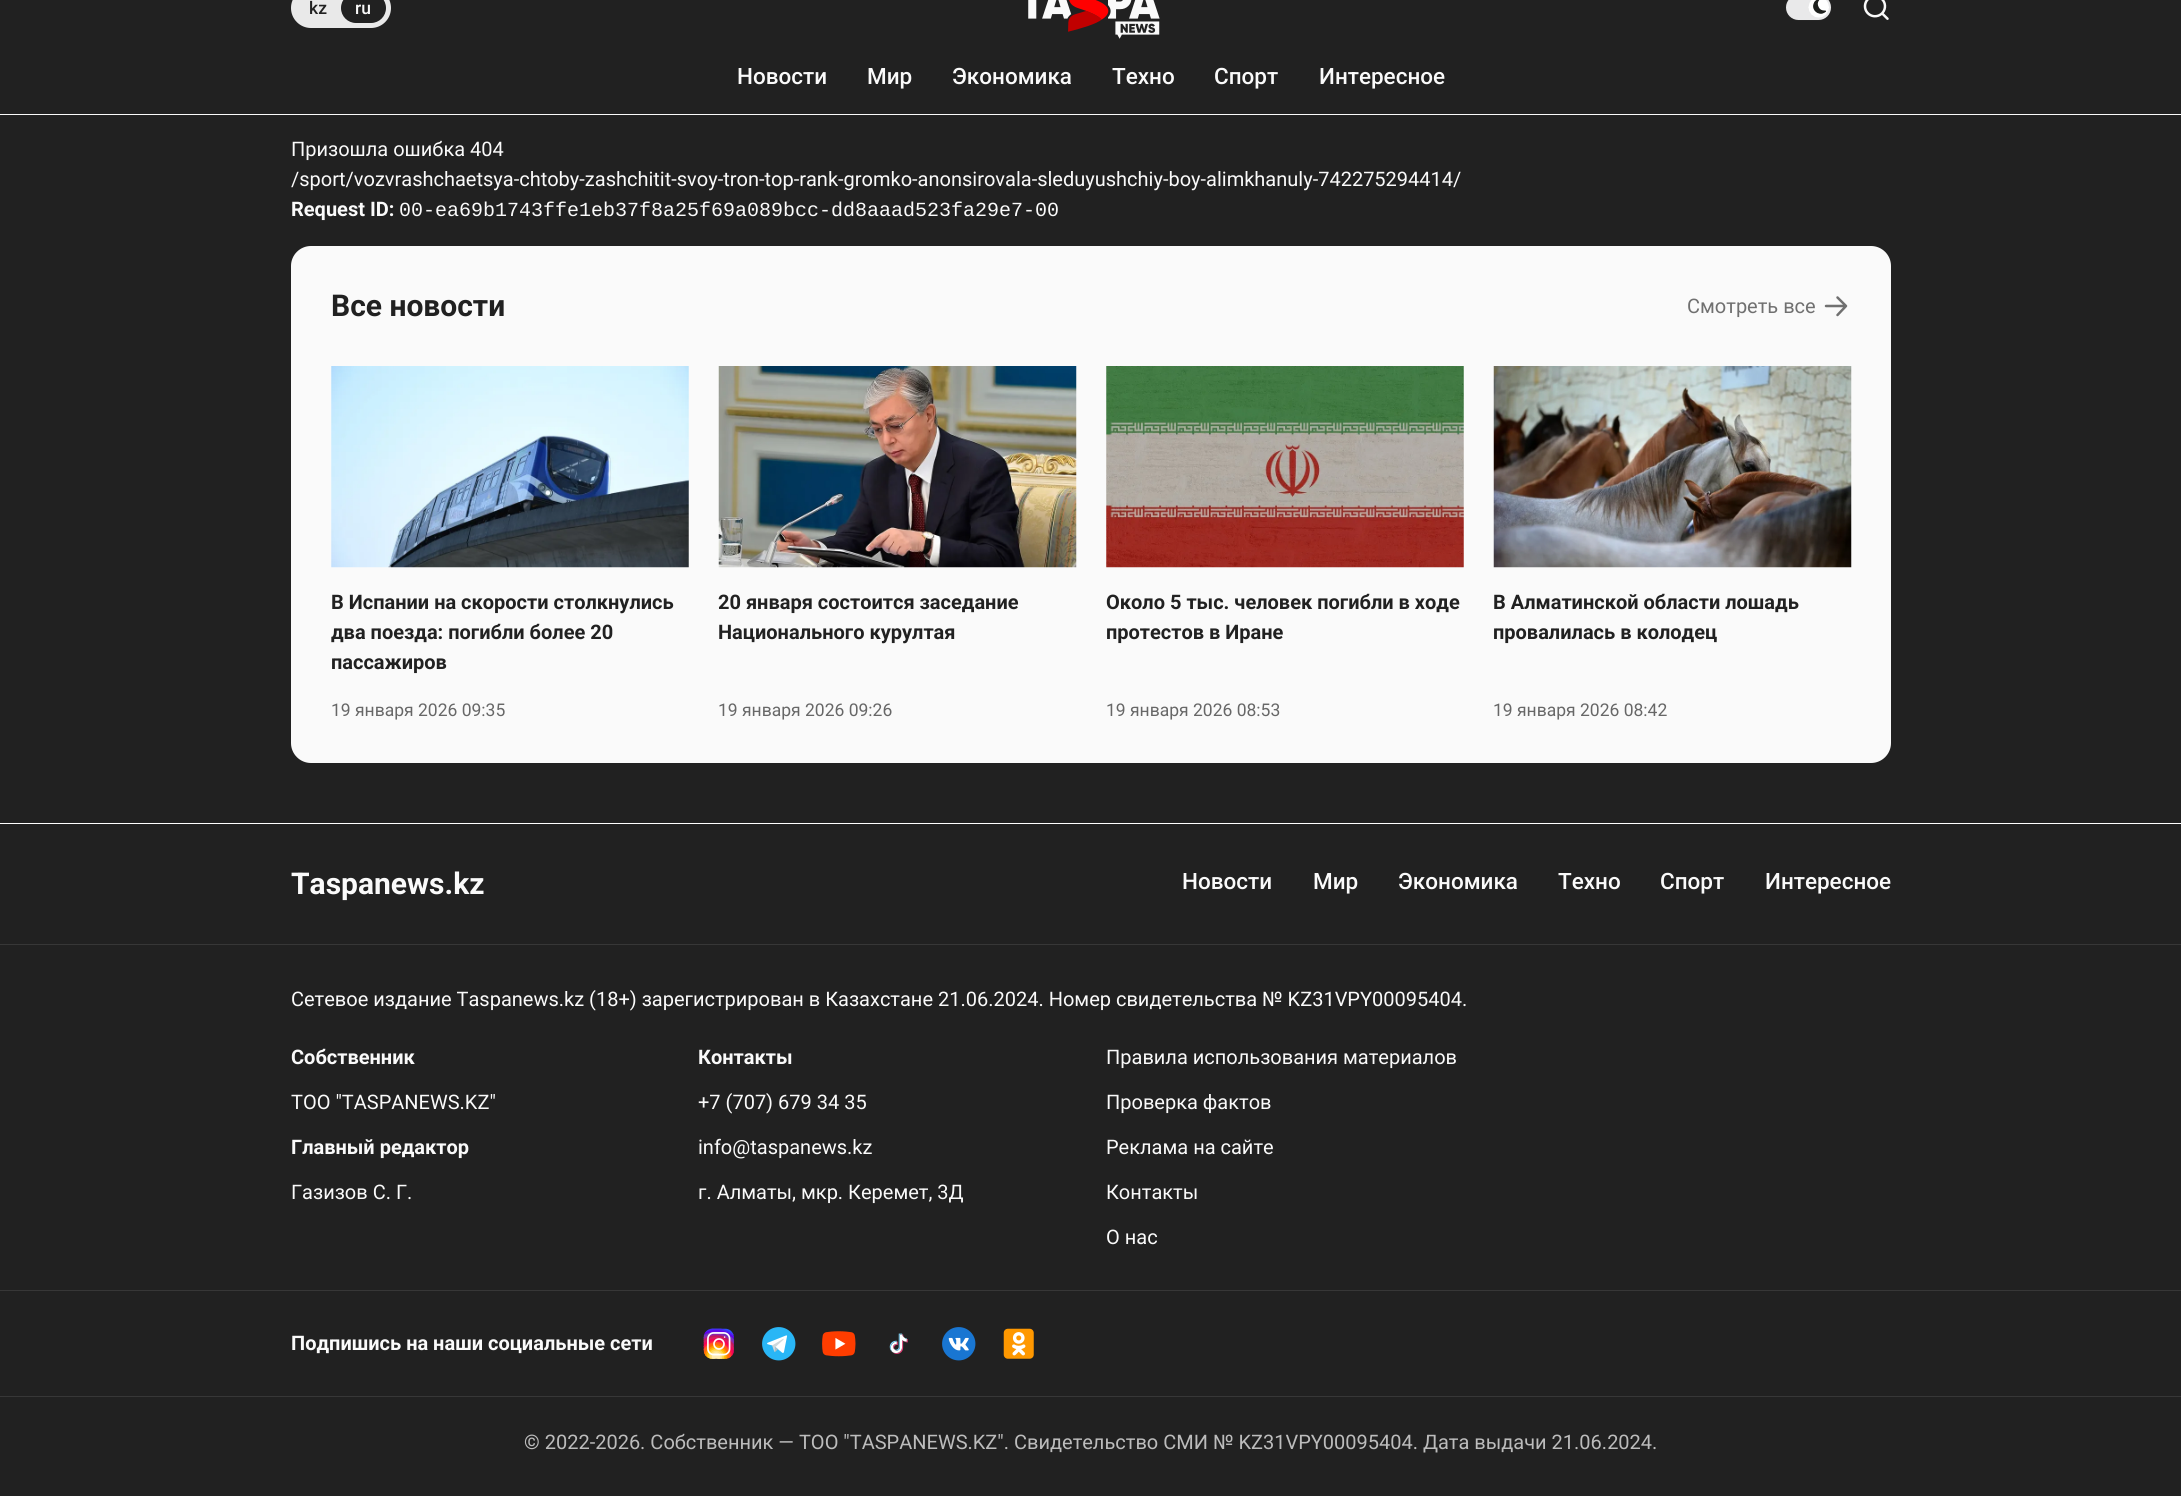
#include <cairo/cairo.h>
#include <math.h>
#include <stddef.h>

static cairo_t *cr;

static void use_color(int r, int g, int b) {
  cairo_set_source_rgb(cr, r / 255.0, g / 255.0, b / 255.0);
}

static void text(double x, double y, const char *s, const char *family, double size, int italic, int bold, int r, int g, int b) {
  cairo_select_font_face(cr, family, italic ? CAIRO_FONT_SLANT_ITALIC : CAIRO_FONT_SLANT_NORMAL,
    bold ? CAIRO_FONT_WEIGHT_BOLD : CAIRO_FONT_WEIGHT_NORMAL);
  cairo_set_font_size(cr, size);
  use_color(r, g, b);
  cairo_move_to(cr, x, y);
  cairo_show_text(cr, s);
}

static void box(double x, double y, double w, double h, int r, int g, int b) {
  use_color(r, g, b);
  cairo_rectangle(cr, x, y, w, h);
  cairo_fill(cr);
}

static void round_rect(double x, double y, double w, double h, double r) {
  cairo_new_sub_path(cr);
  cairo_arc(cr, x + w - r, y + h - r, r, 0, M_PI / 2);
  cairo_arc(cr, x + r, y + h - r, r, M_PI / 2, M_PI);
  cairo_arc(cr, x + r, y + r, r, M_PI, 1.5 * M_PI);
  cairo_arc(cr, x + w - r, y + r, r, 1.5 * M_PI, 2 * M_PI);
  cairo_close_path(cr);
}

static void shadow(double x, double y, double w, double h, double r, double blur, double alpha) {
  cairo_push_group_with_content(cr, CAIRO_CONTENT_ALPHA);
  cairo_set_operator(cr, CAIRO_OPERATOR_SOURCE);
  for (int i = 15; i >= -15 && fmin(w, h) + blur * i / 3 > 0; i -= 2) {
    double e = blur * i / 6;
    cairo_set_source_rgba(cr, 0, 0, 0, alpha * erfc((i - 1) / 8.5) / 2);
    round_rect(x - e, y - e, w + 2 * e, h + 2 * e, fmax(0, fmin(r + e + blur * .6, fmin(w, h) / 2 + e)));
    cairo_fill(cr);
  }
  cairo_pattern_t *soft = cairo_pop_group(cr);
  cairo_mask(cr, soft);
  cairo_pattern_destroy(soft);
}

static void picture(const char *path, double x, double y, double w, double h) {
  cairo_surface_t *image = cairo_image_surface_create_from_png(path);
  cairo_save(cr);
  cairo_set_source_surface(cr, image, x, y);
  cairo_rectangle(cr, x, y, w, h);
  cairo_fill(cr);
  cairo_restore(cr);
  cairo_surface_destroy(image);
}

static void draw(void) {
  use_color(33, 33, 33);
  cairo_paint(cr);
  box(0, 114, 2181, 1, 250, 250, 250);
  use_color(233, 233, 233);
  round_rect(291, -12, 100, 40, 20);
  cairo_fill(cr);
  use_color(33, 33, 33);
  round_rect(341, -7, 45, 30, 15);
  cairo_fill(cr);
  picture("img_01.png", 1028, 0, 132, 39);
  use_color(51, 51, 51);
  shadow(1786, -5, 45, 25, 12.5, 0.5, 0.8);
  use_color(233, 233, 234);
  round_rect(1786, -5, 45, 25, 12.5);
  cairo_fill(cr);
  picture("img_02.png", 1808, 0, 21, 18);
  picture("img_03.png", 1863, 0, 26, 20);
  use_color(250, 250, 250);
  round_rect(291, 246, 1600, 517, 20);
  cairo_fill(cr);
  cairo_new_path(cr);
  cairo_move_to(cr, 1826, 306);
  cairo_line_to(cr, 1846, 306);
  cairo_move_to(cr, 1846, 306);
  cairo_line_to(cr, 1837.5, 297.5);
  cairo_move_to(cr, 1846, 306);
  cairo_line_to(cr, 1837.5, 315);
  use_color(112, 112, 112);
  cairo_set_line_width(cr, 2.5);
  cairo_set_line_cap(cr, CAIRO_LINE_CAP_ROUND);
  cairo_set_line_join(cr, CAIRO_LINE_JOIN_ROUND);
  cairo_stroke(cr);
  picture("img_04.png", 331, 366, 358, 202);
  picture("img_05.png", 718, 366, 359, 202);
  picture("img_06.png", 1106, 366, 358, 202);
  picture("img_07.png", 1493, 366, 359, 202);
  box(0, 823, 2181, 1, 255, 255, 255);
  box(0, 944, 2181, 1, 55, 55, 55);
  box(0, 1290, 2181, 1, 55, 55, 55);
  picture("img_08.png", 703, 1328, 31, 31);
  picture("img_09.png", 762, 1327, 34, 34);
  picture("img_10.png", 822, 1331, 34, 26);
  picture("img_11.png", 889, 1333, 19, 21);
  picture("img_12.png", 942, 1327, 34, 34);
  picture("img_13.png", 1003, 1328, 31, 31);
  box(0, 1396, 2181, 1, 55, 55, 55);
  text(309, 14, "kz", "Roboto Medium", 17.5, 0, 0, 33, 33, 33);
  text(355, 14, "ru", "Roboto Medium", 17.5, 0, 0, 250, 250, 250);
  text(737, 84, "Новости", "Roboto Medium", 22.5, 0, 0, 250, 250, 250);
  text(867, 84, "Мир", "Roboto Medium", 22.5, 0, 0, 250, 250, 250);
  text(952, 84, "Экономика", "Roboto Medium", 22.5, 0, 0, 250, 250, 250);
  text(1112, 84, "Техно", "Roboto Medium", 22.5, 0, 0, 250, 250, 250);
  text(1214, 84, "Спорт", "Roboto Medium", 22.5, 0, 0, 250, 250, 250);
  text(1319, 84, "Интересное", "Roboto Medium", 22.5, 0, 0, 250, 250, 250);
  text(291, 156, "Призошла ошибка 404", "Roboto", 20, 0, 0, 250, 250, 250);
  text(291, 186, "/sport/vozvrashchaetsya-chtoby-zashchitit-svoy-tron-top-rank-gromko-anonsirovala-sleduyushchiy-boy-alimkhanuly-742275294414/", "Roboto", 20, 0, 0, 250, 250, 250);
  text(291, 216, "Request ID:", "Roboto", 20, 0, 1, 250, 250, 250);
  text(399, 216, "00-ea69b1743ffe1eb37f8a25f69a089bcc-dd8aaad523fa29e7-00", "Liberation Mono", 20, 0, 0, 250, 250, 250);
  text(331, 316, "Все новости", "Roboto", 30, 0, 1, 33, 33, 33);
  text(1687, 313, "Смотреть все", "Roboto", 20, 0, 0, 112, 112, 112);
  text(331, 609, "В Испании на скорости столкнулись", "Roboto", 20, 0, 1, 33, 33, 33);
  text(331, 639, "два поезда: погибли более 20", "Roboto", 20, 0, 1, 33, 33, 33);
  text(331, 669, "пассажиров", "Roboto", 20, 0, 1, 33, 33, 33);
  text(331, 716, "19 января 2026 09:35", "Roboto", 17.5, 0, 0, 103, 103, 103);
  text(718, 609, "20 января состоится заседание", "Roboto", 20, 0, 1, 33, 33, 33);
  text(718, 639, "Национального курултая", "Roboto", 20, 0, 1, 33, 33, 33);
  text(718, 716, "19 января 2026 09:26", "Roboto", 17.5, 0, 0, 103, 103, 103);
  text(1106, 609, "Около 5 тыс. человек погибли в ходе", "Roboto", 20, 0, 1, 33, 33, 33);
  text(1106, 639, "протестов в Иране", "Roboto", 20, 0, 1, 33, 33, 33);
  text(1106, 716, "19 января 2026 08:53", "Roboto", 17.5, 0, 0, 103, 103, 103);
  text(1493, 609, "В Алматинской области лошадь", "Roboto", 20, 0, 1, 33, 33, 33);
  text(1493, 639, "провалилась в колодец", "Roboto", 20, 0, 1, 33, 33, 33);
  text(1493, 716, "19 января 2026 08:42", "Roboto", 17.5, 0, 0, 103, 103, 103);
  text(291, 894, "Taspanews.kz", "Roboto", 30, 0, 1, 250, 250, 250);
  text(1182, 889, "Новости", "Roboto Medium", 22.5, 0, 0, 250, 250, 250);
  text(1313, 889, "Мир", "Roboto Medium", 22.5, 0, 0, 250, 250, 250);
  text(1398, 889, "Экономика", "Roboto Medium", 22.5, 0, 0, 250, 250, 250);
  text(1558, 889, "Техно", "Roboto Medium", 22.5, 0, 0, 250, 250, 250);
  text(1660, 889, "Спорт", "Roboto Medium", 22.5, 0, 0, 250, 250, 250);
  text(1765, 889, "Интересное", "Roboto Medium", 22.5, 0, 0, 250, 250, 250);
  text(291, 1006, "Сетевое издание Taspanews.kz (18+) зарегистрирован в Казахстане 21.06.2024. Номер свидетельства № KZ31VPY00095404.", "Roboto", 20, 0, 0, 250, 250, 250);
  text(291, 1064, "Собственник", "Roboto", 20, 0, 1, 250, 250, 250);
  text(291, 1109, "ТОО \"TASPANEWS.KZ\"", "Roboto", 20, 0, 0, 250, 250, 250);
  text(291, 1154, "Главный редактор", "Roboto", 20, 0, 1, 250, 250, 250);
  text(291, 1199, "Газизов С. Г.", "Roboto", 20, 0, 0, 250, 250, 250);
  text(698, 1064, "Контакты", "Roboto", 20, 0, 1, 250, 250, 250);
  text(698, 1109, "+7 (707) 679 34 35", "Roboto", 20, 0, 0, 250, 250, 250);
  text(698, 1154, "info@taspanews.kz", "Roboto", 20, 0, 0, 250, 250, 250);
  text(698, 1199, "г. Алматы, мкр. Керемет, 3Д", "Roboto", 20, 0, 0, 250, 250, 250);
  text(1106, 1064, "Правила использования материалов", "Roboto", 20, 0, 0, 250, 250, 250);
  text(1106, 1109, "Проверка фактов", "Roboto", 20, 0, 0, 250, 250, 250);
  text(1106, 1154, "Реклама на сайте", "Roboto", 20, 0, 0, 250, 250, 250);
  text(1106, 1199, "Контакты", "Roboto", 20, 0, 0, 250, 250, 250);
  text(1106, 1244, "О нас", "Roboto", 20, 0, 0, 250, 250, 250);
  text(291, 1350, "Подпишись на наши социальные cети", "Roboto", 20, 0, 1, 250, 250, 250);
  text(524, 1449, "© 2022-2026. Собственник — ТОО \"TASPANEWS.KZ\". Cвидетельство СМИ № KZ31VPY00095404. Дата выдачи 21.06.2024.", "Roboto", 20, 0, 0, 188, 188, 188);
}

int main(void) {
  cairo_surface_t *surface = cairo_image_surface_create(CAIRO_FORMAT_RGB24, 2181, 1496);
  cr = cairo_create(surface);
  cairo_font_options_t *options = cairo_font_options_create();
  cairo_font_options_set_hint_metrics(options, CAIRO_HINT_METRICS_OFF);
  cairo_font_options_set_hint_style(options, CAIRO_HINT_STYLE_NONE);
  cairo_set_font_options(cr, options);
  cairo_set_miter_limit(cr, 4);
  draw();
  cairo_surface_write_to_png(surface, "out.png");
  cairo_font_options_destroy(options);
  cairo_destroy(cr);
  cairo_surface_destroy(surface);
  return 0;
}
